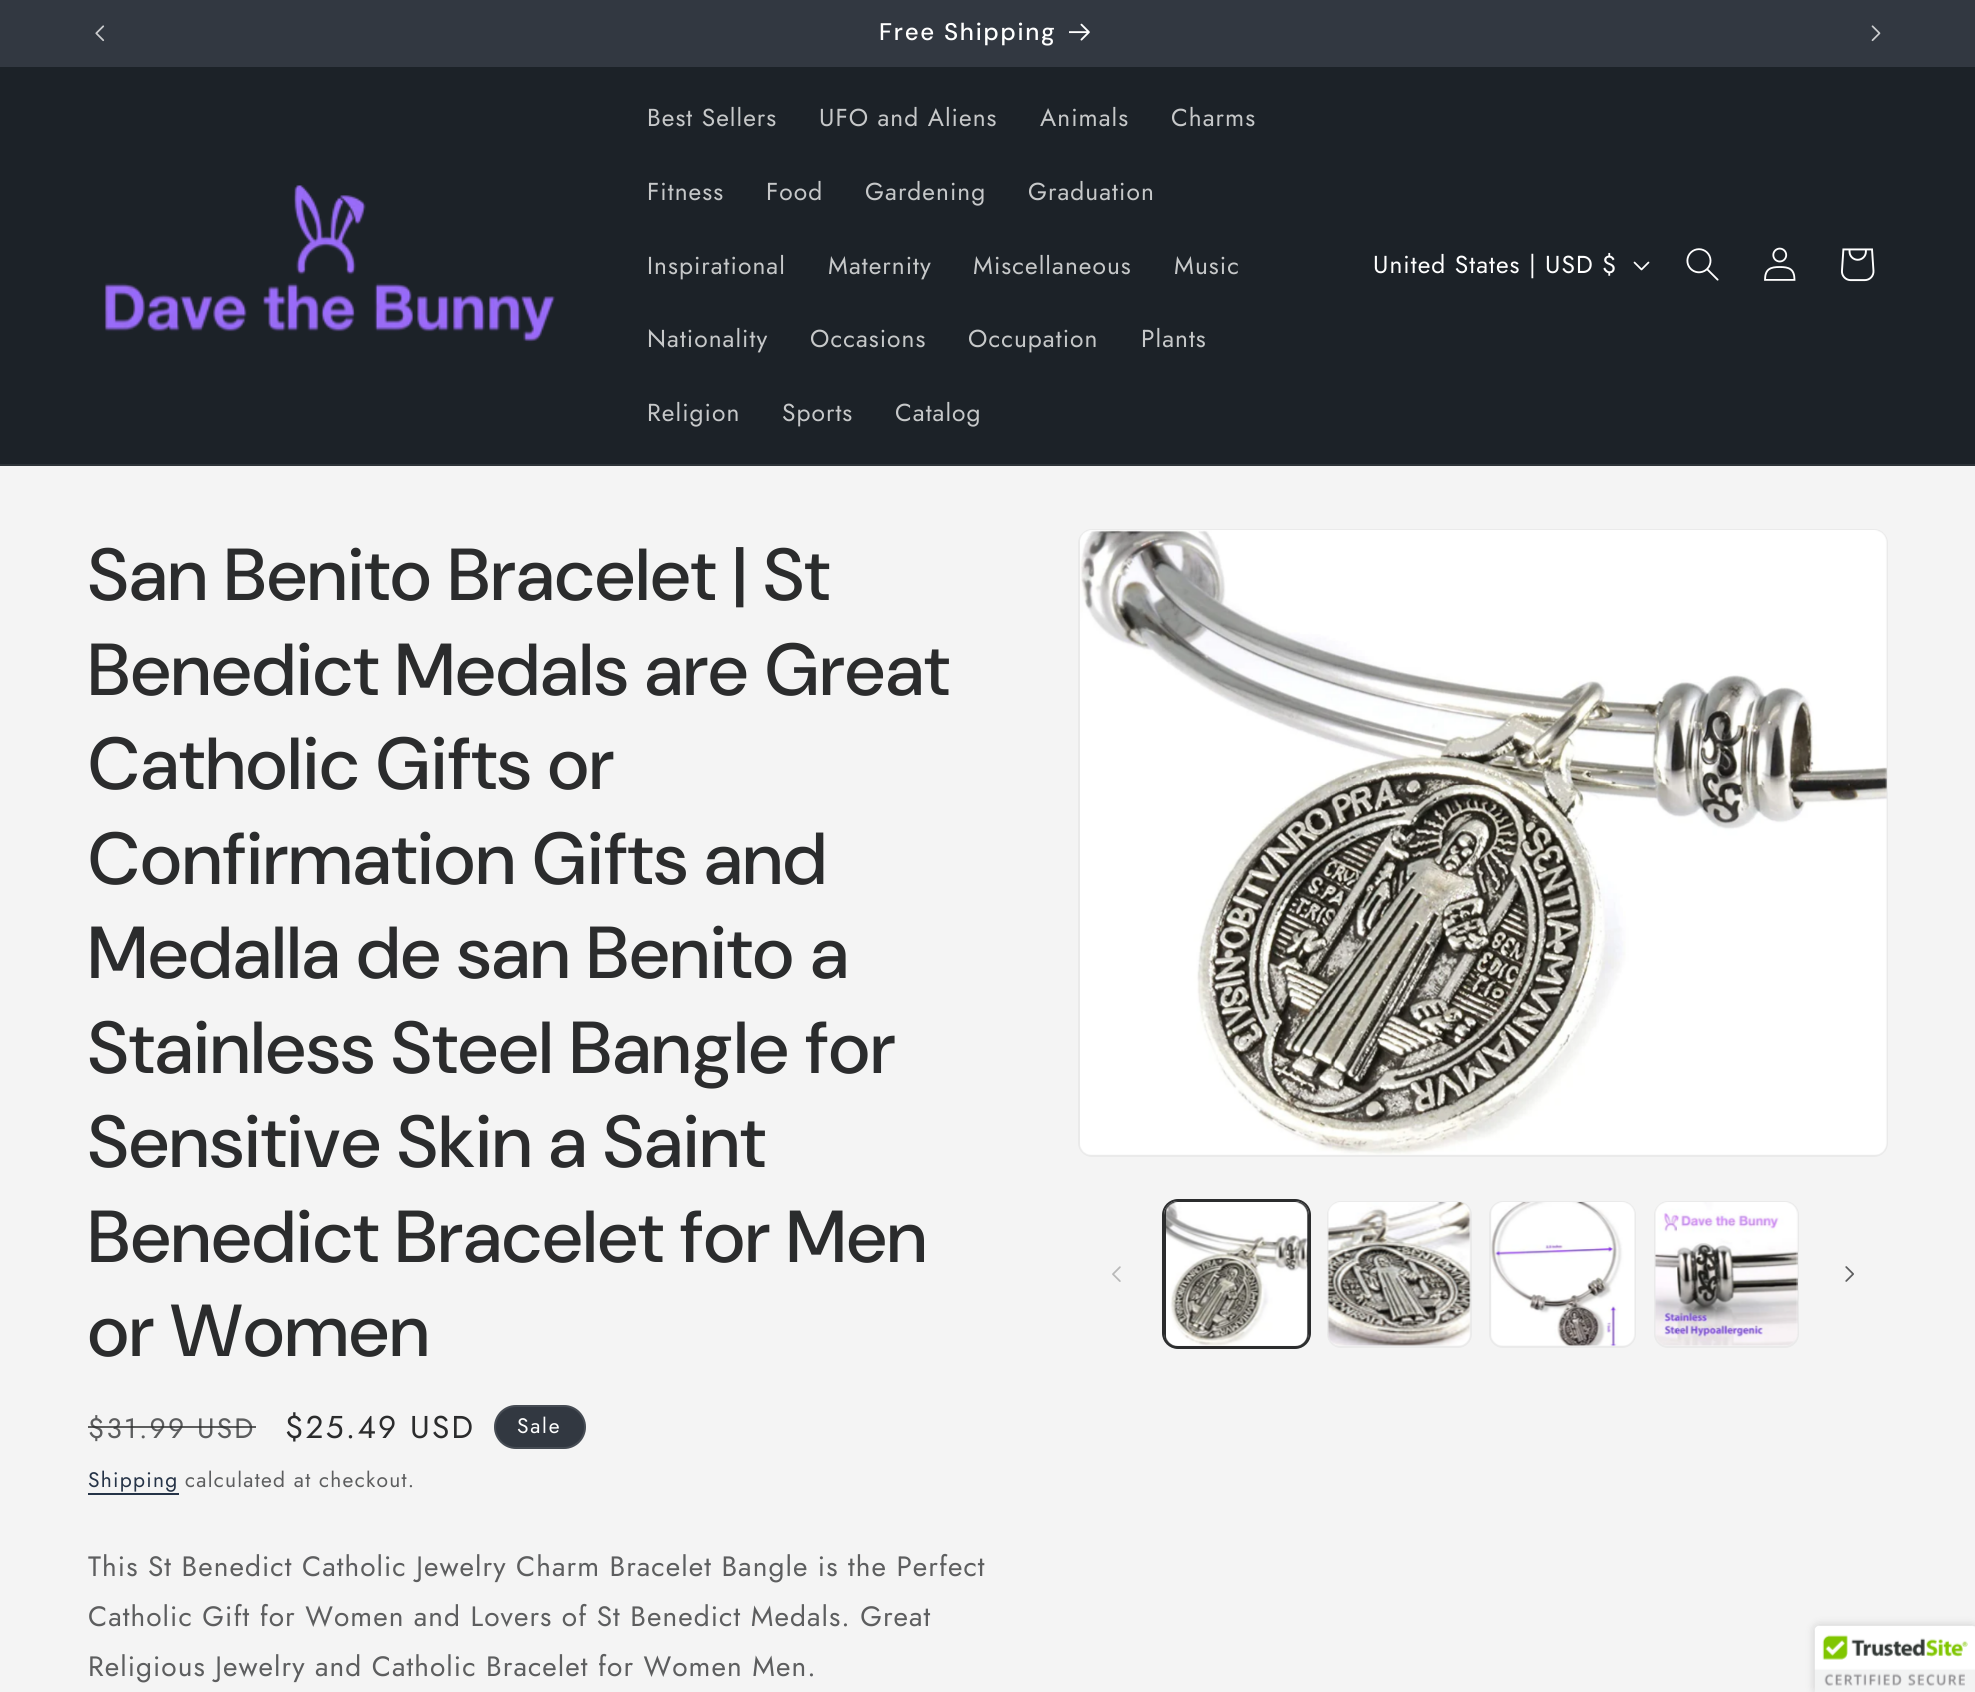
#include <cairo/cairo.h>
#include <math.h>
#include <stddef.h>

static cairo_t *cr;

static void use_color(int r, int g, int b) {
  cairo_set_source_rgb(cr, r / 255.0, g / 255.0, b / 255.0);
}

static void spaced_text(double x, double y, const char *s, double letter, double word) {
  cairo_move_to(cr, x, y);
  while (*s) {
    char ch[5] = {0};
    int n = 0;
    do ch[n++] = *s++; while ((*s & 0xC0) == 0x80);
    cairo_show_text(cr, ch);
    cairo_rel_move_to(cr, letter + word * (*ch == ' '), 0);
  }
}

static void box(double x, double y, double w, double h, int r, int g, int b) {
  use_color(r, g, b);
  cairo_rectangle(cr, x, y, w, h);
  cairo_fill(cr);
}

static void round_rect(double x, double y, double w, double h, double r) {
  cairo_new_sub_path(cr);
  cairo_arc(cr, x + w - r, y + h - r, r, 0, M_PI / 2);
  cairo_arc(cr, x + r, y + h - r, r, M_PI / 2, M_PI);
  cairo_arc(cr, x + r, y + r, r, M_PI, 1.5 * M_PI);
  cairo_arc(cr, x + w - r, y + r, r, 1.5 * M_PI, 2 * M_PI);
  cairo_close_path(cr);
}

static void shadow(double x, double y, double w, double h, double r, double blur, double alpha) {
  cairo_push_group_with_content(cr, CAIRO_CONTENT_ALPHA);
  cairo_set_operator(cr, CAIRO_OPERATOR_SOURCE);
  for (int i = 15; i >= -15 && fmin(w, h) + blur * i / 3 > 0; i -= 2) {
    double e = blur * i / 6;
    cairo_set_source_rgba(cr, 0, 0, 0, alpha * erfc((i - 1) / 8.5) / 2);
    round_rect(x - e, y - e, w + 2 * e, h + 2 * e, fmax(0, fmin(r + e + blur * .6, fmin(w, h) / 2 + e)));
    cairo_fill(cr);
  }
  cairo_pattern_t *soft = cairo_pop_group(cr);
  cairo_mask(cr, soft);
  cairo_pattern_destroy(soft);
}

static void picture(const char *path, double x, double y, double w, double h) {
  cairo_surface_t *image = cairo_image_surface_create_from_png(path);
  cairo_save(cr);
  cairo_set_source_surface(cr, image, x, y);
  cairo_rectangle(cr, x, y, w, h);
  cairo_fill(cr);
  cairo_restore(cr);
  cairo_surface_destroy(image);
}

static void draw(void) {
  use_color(244, 244, 244);
  cairo_paint(cr);
  box(0, 0, 1975, 67, 50, 56, 65);
  picture("img_01.png", 95, 25, 10, 17);
  picture("img_02.png", 1069, 23, 21, 18);
  picture("img_03.png", 1871, 25, 10, 17);
  box(0, 67, 1975, 397, 28, 34, 40);
  box(0, 464, 1975, 2, 46, 52, 57);
  picture("img_04.png", 104, 185, 451, 158);
  picture("img_05.png", 1633, 261, 17, 10);
  picture("img_06.png", 1686, 248, 33, 33);
  picture("img_07.png", 1764, 247, 32, 34);
  picture("img_08.png", 1841, 248, 34, 34);
  use_color(50, 56, 65);
  round_rect(494, 1405, 92, 44, 22);
  cairo_fill(cr);
  round_rect(495, 1406, 90, 42, 21);
  cairo_set_source_rgba(cr, 1, 1, 1, 0.1);
  cairo_stroke(cr);
  box(88, 1493, 91, 2, 37, 51, 71);
  round_rect(1079, 530, 808, 626, 13);
  use_color(234, 234, 234);
  cairo_stroke(cr);
  picture("img_09.png", 1080, 530, 807, 625);
  picture("img_10.png", 1112, 1266, 9, 16);
  round_rect(1163, 1200, 147, 148, 15);
  use_color(43, 44, 45);
  cairo_stroke(cr);
  round_rect(1165, 1202, 143, 145, 13);
  cairo_stroke(cr);
  picture("img_11.png", 1166, 1202, 142, 144);
  round_rect(1328, 1202, 143, 145, 13);
  use_color(234, 234, 234);
  cairo_stroke(cr);
  picture("img_12.png", 1327, 1202, 144, 144);
  round_rect(1490, 1202, 145, 145, 13);
  cairo_stroke(cr);
  picture("img_13.png", 1491, 1202, 144, 144);
  round_rect(1655, 1202, 143, 145, 13);
  cairo_stroke(cr);
  picture("img_14.png", 1655, 1202, 143, 144);
  picture("img_15.png", 1845, 1266, 9, 16);
  use_color(0, 0, 0);
  shadow(1815, 1626, 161, 66, 4, 4.5, 0.2);
  use_color(255, 255, 255);
  cairo_new_path(cr);
  cairo_move_to(cr, 1819, 1626);
  cairo_line_to(cr, 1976, 1626);
  cairo_line_to(cr, 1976, 1692);
  cairo_line_to(cr, 1815, 1692);
  cairo_line_to(cr, 1815, 1630);
  cairo_curve_to(cr, 1815, 1628, 1817, 1626, 1819, 1626);
  cairo_close_path(cr);
  cairo_fill(cr);
  picture("img_16.png", 1814, 1625, 161, 67);
  cairo_select_font_face(cr, "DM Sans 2 Medium", CAIRO_FONT_SLANT_NORMAL, CAIRO_FONT_WEIGHT_NORMAL);
  cairo_set_font_size(cr, 24);
  spaced_text(879, 40, "Free Shipping", 1.75, 0);
  cairo_select_font_face(cr, "Jost", CAIRO_FONT_SLANT_NORMAL, CAIRO_FONT_WEIGHT_NORMAL);
  cairo_set_font_size(cr, 24.5);
  use_color(198, 200, 201);
  spaced_text(647, 126, "Best Sellers", 1.05, 0);
  spaced_text(819, 126, "UFO and Aliens", 1.05, 0);
  spaced_text(1040, 126, "Animals", 1.05, 0);
  spaced_text(1171, 126, "Charms", 1.05, 0);
  spaced_text(647, 200, "Fitness", 1.05, 0);
  spaced_text(766, 200, "Food", 1.05, 0);
  spaced_text(865, 200, "Gardening", 1.05, 0);
  spaced_text(1028, 200, "Graduation", 1.05, 0);
  spaced_text(647, 274, "Inspirational", 1.05, 0);
  spaced_text(828, 274, "Maternity", 1.05, 0);
  spaced_text(973, 274, "Miscellaneous", 1.05, 0);
  spaced_text(1174, 274, "Music", 1.05, 0);
  spaced_text(647, 347, "Nationality", 1.05, 0);
  spaced_text(810, 347, "Occasions", 1.05, 0);
  spaced_text(968, 347, "Occupation", 1.05, 0);
  spaced_text(1141, 347, "Plants", 1.05, 0);
  spaced_text(647, 421, "Religion", 1.05, 0);
  spaced_text(782, 421, "Sports", 1.05, 0);
  spaced_text(895, 421, "Catalog", 1.05, 0);
  use_color(255, 255, 255);
  spaced_text(1373, 273, "United States | USD $", 1.05, 0);
  cairo_select_font_face(cr, "DM Sans Medium", CAIRO_FONT_SLANT_NORMAL, CAIRO_FONT_WEIGHT_NORMAL);
  cairo_set_font_size(cr, 73.5);
  use_color(43, 44, 45);
  spaced_text(88, 600, "San Benito Bracelet | St", 1.1, 0);
  spaced_text(88, 695, "Benedict Medals are Great", 1.1, 0);
  spaced_text(88, 789, "Catholic Gifts or", 1.1, 0);
  spaced_text(88, 884, "Confirmation Gifts and", 1.1, 0);
  spaced_text(88, 978, "Medalla de san Benito a", 1.1, 0);
  spaced_text(88, 1073, "Stainless Steel Bangle for", 1.1, 0);
  spaced_text(88, 1167, "Sensitive Skin a Saint", 1.1, 0);
  spaced_text(88, 1262, "Benedict Bracelet for Men", 1.1, 0);
  spaced_text(88, 1356, "or Women", 1.1, 0);
  cairo_select_font_face(cr, "Jost", CAIRO_FONT_SLANT_NORMAL, CAIRO_FONT_WEIGHT_NORMAL);
  cairo_set_font_size(cr, 28);
  use_color(93, 94, 95);
  spaced_text(88, 1438, "$31.99 USD", 2.25, 0);
  cairo_set_source_rgba(cr, 0.169, 0.173, 0.176, 0.75);
  cairo_rectangle(cr, 88, 1426, 168, 2);
  cairo_fill(cr);
  cairo_set_font_size(cr, 31.5);
  use_color(43, 44, 45);
  spaced_text(285, 1438, "$25.49 USD", 2.25, 0);
  cairo_set_font_size(cr, 21);
  use_color(255, 255, 255);
  spaced_text(517, 1433, "Sale", 1.75, 0);
  use_color(37, 51, 71);
  spaced_text(88, 1487, "Shipping", 1.25, 0);
  use_color(93, 94, 95);
  spaced_text(185, 1487, "calculated at checkout.", 1.25, 0);
  cairo_set_font_size(cr, 28);
  spaced_text(88, 1576, "This St Benedict Catholic Jewelry Charm Bracelet Bangle is the Perfect", 1.05, 0);
  spaced_text(88, 1626, "Catholic Gift for Women and Lovers of St Benedict Medals. Great", 1.05, 0);
  spaced_text(88, 1676, "Religious Jewelry and Catholic Bracelet for Women Men.", 1.05, 0);
}

int main(void) {
  cairo_surface_t *surface = cairo_image_surface_create(CAIRO_FORMAT_RGB24, 1975, 1692);
  cr = cairo_create(surface);
  cairo_font_options_t *options = cairo_font_options_create();
  cairo_font_options_set_hint_metrics(options, CAIRO_HINT_METRICS_OFF);
  cairo_font_options_set_hint_style(options, CAIRO_HINT_STYLE_NONE);
  cairo_set_font_options(cr, options);
  cairo_set_miter_limit(cr, 4);
  draw();
  cairo_surface_write_to_png(surface, "out.png");
  cairo_font_options_destroy(options);
  cairo_destroy(cr);
  cairo_surface_destroy(surface);
  return 0;
}
